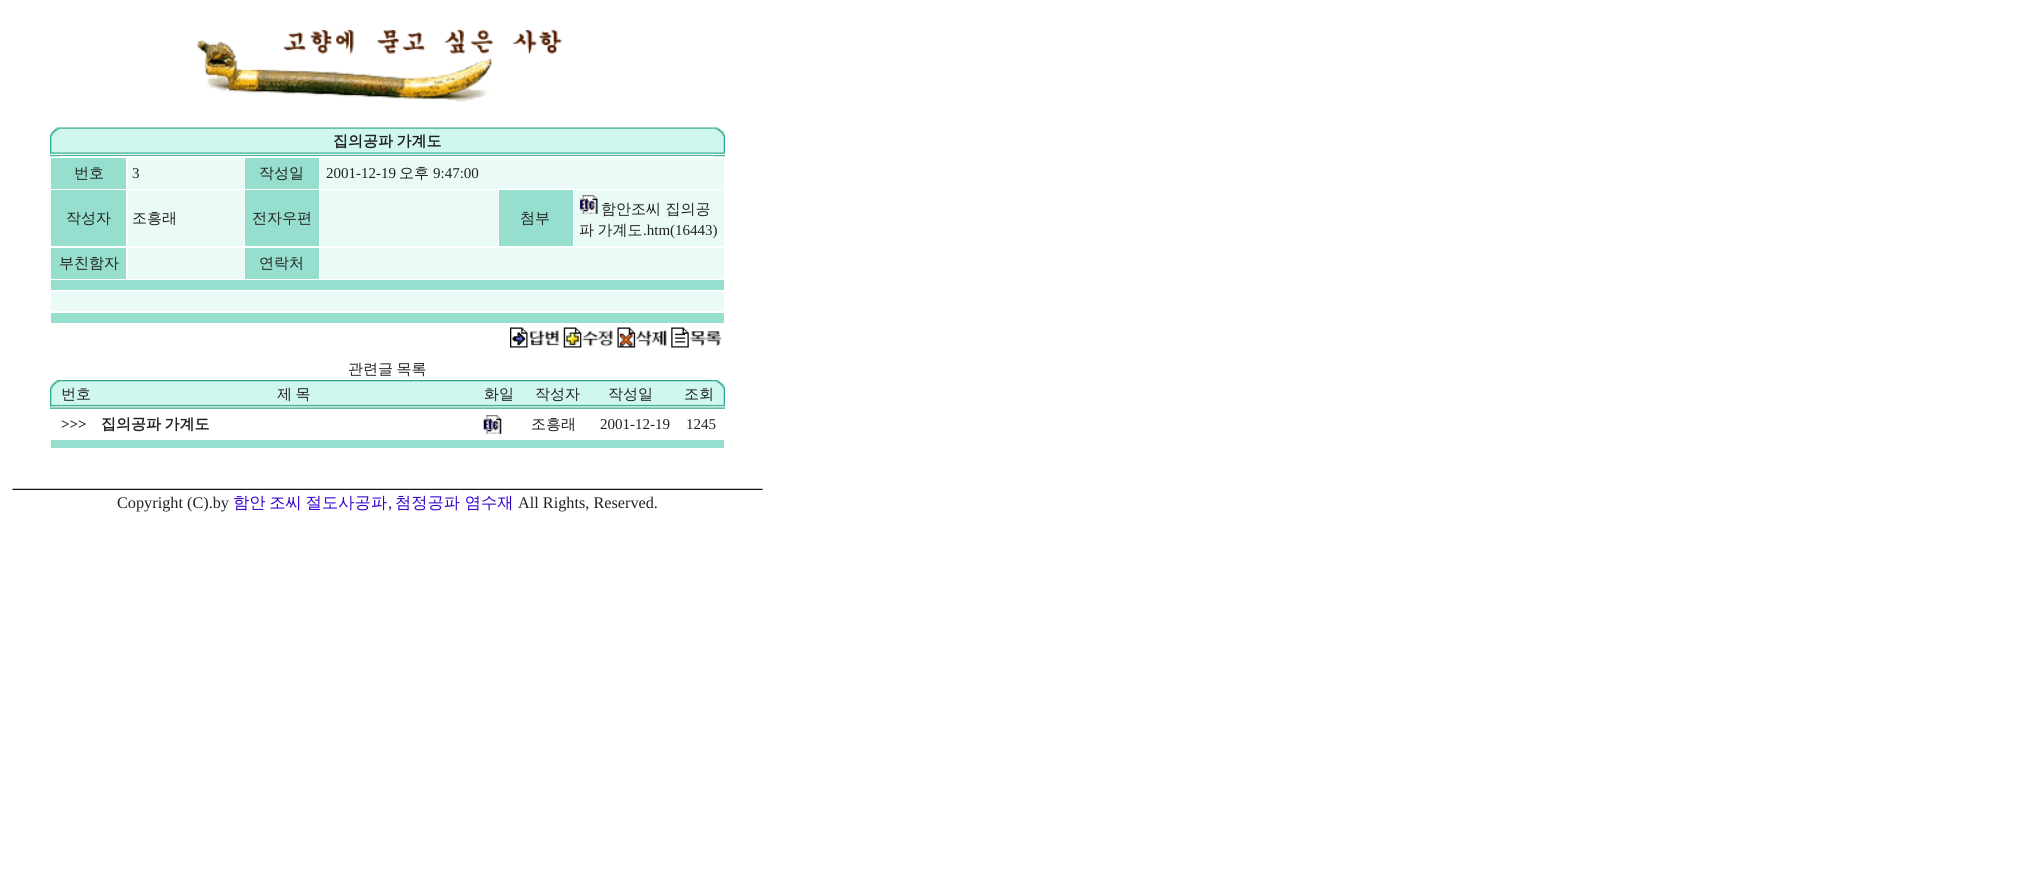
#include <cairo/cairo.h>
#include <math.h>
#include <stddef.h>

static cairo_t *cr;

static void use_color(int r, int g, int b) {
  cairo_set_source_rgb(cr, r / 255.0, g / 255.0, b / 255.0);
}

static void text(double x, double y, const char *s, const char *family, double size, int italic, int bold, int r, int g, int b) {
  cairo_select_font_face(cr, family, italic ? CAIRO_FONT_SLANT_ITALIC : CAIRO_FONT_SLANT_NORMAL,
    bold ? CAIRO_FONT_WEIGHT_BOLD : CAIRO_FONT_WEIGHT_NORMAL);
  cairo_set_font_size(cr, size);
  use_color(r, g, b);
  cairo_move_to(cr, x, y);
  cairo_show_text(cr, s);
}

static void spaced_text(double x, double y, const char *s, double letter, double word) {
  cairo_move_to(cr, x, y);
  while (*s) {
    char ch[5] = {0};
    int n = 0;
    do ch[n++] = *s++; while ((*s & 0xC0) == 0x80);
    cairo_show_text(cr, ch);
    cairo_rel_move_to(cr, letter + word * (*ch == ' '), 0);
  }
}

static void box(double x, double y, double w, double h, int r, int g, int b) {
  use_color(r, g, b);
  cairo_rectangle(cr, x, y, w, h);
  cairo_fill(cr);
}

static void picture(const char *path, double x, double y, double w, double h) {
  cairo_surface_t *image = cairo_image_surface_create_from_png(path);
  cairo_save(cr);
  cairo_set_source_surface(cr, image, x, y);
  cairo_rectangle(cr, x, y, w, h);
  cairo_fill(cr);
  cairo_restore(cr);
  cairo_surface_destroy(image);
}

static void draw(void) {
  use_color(255, 255, 255);
  cairo_paint(cr);
  picture("img_01.png", 197, 29, 365, 73);
  picture("img_03.png", 61, 127, 653, 29);
  picture("img_02.png", 50, 127, 12, 30);
  picture("img_04.png", 713, 127, 12, 30);
  box(51, 158, 75, 31, 150, 223, 207);
  box(128, 158, 116, 31, 234, 251, 247);
  box(245, 158, 74, 31, 150, 223, 207);
  box(320, 158, 404, 31, 234, 251, 247);
  box(51, 190, 75, 56, 150, 223, 207);
  box(128, 190, 116, 56, 234, 251, 247);
  box(245, 190, 74, 56, 150, 223, 207);
  box(320, 190, 178, 56, 234, 251, 247);
  box(499, 190, 74, 56, 150, 223, 207);
  box(574, 190, 150, 56, 234, 251, 247);
  picture("img_05.png", 579, 195, 19, 19);
  box(51, 248, 75, 31, 150, 223, 207);
  box(128, 248, 116, 31, 234, 251, 247);
  box(245, 248, 74, 31, 150, 223, 207);
  box(320, 248, 404, 31, 234, 251, 247);
  box(51, 280, 673, 10, 150, 223, 207);
  box(51, 291, 673, 20, 234, 251, 247);
  box(51, 313, 673, 10, 150, 223, 207);
  picture("img_06.png", 510, 327, 49, 21);
  picture("img_07.png", 563, 327, 50, 21);
  picture("img_08.png", 617, 327, 50, 21);
  picture("img_09.png", 671, 327, 51, 21);
  picture("img_11.png", 61, 380, 653, 29);
  picture("img_10.png", 50, 380, 12, 29);
  picture("img_12.png", 713, 380, 12, 29);
  picture("img_13.png", 483, 415, 19, 19);
  box(51, 440, 673, 8, 150, 223, 207);
  picture("img_14.png", 12, 488, 751, 2);
  cairo_select_font_face(cr, "WenQuanYi Zen Hei", CAIRO_FONT_SLANT_NORMAL, CAIRO_FONT_WEIGHT_BOLD);
  cairo_set_font_size(cr, 15);
  use_color(34, 34, 34);
  spaced_text(333, 146, "집의공파 가계도", 0, -1);
  text(74, 178, "번호", "WenQuanYi Zen Hei Medium", 15, 0, 0, 34, 34, 34);
  text(132, 178, "3", "Liberation Serif", 15, 0, 0, 34, 34, 34);
  text(259, 178, "작성일", "WenQuanYi Zen Hei Medium", 15, 0, 0, 34, 34, 34);
  text(326, 178, "2001-12-19", "Liberation Serif", 15, 0, 0, 34, 34, 34);
  text(399, 178, "오후", "WenQuanYi Zen Hei Medium", 15, 0, 0, 34, 34, 34);
  text(433, 178, "9:47:00", "Liberation Serif", 15, 0, 0, 34, 34, 34);
  text(66, 223, "작성자", "WenQuanYi Zen Hei Medium", 15, 0, 0, 34, 34, 34);
  text(132, 223, "조흥래", "WenQuanYi Zen Hei Medium", 15, 0, 0, 34, 34, 34);
  text(252, 223, "전자우편", "WenQuanYi Zen Hei Medium", 15, 0, 0, 34, 34, 34);
  text(520, 223, "첨부", "WenQuanYi Zen Hei Medium", 15, 0, 0, 34, 34, 34);
  text(601, 214, "함안조씨 집의공", "WenQuanYi Zen Hei Medium", 15, 0, 0, 34, 34, 34);
  spaced_text(579, 235, "파 가계도", 0, -1);
  text(643, 235, ".htm(16443)", "Liberation Serif", 15, 0, 0, 34, 34, 34);
  text(59, 268, "부친함자", "WenQuanYi Zen Hei Medium", 15, 0, 0, 34, 34, 34);
  text(259, 268, "연락처", "WenQuanYi Zen Hei Medium", 15, 0, 0, 34, 34, 34);
  spaced_text(348, 374, "관련글 목록", 0, -1);
  text(61, 399, "번호", "WenQuanYi Zen Hei Medium", 15, 0, 0, 34, 34, 34);
  spaced_text(277, 399, "제 목", 0, -1);
  text(484, 399, "화일", "WenQuanYi Zen Hei Medium", 15, 0, 0, 34, 34, 34);
  text(535, 399, "작성자", "WenQuanYi Zen Hei Medium", 15, 0, 0, 34, 34, 34);
  text(608, 399, "작성일", "WenQuanYi Zen Hei Medium", 15, 0, 0, 34, 34, 34);
  text(684, 399, "조회", "WenQuanYi Zen Hei Medium", 15, 0, 0, 34, 34, 34);
  text(61, 429, ">>>", "Liberation Serif", 15, 0, 1, 34, 34, 34);
  cairo_select_font_face(cr, "WenQuanYi Zen Hei", CAIRO_FONT_SLANT_NORMAL, CAIRO_FONT_WEIGHT_BOLD);
  spaced_text(101, 429, "집의공파 가계도", 0, -1);
  text(531, 429, "조흥래", "WenQuanYi Zen Hei Medium", 15, 0, 0, 34, 34, 34);
  text(600, 429, "2001-12-19", "Liberation Serif", 15, 0, 0, 34, 34, 34);
  text(686, 429, "1245", "Liberation Serif", 15, 0, 0, 34, 34, 34);
  text(117, 508, "Copyright (C).by", "Liberation Serif", 16.25, 0, 0, 34, 34, 34);
  cairo_select_font_face(cr, "WenQuanYi Zen Hei Medium", CAIRO_FONT_SLANT_NORMAL, CAIRO_FONT_WEIGHT_NORMAL);
  use_color(51, 0, 204);
  spaced_text(233, 508, "함안 조씨 절도사공", 0, -1);
  text(371, 508, "파", "WenQuanYi Zen Hei Medium", 16.25, 0, 0, 51, 0, 204);
  text(388, 508, ",", "Liberation Serif", 16.25, 0, 0, 51, 0, 204);
  text(395, 508, "첨정공파 염수재", "WenQuanYi Zen Hei Medium", 16.25, 0, 0, 51, 0, 204);
  text(518, 508, "All Rights, Reserved.", "Liberation Serif", 16.25, 0, 0, 34, 34, 34);
}

int main(void) {
  cairo_surface_t *surface = cairo_image_surface_create(CAIRO_FORMAT_RGB24, 2032, 885);
  cr = cairo_create(surface);
  cairo_font_options_t *options = cairo_font_options_create();
  cairo_font_options_set_hint_metrics(options, CAIRO_HINT_METRICS_OFF);
  cairo_font_options_set_hint_style(options, CAIRO_HINT_STYLE_NONE);
  cairo_set_font_options(cr, options);
  cairo_set_miter_limit(cr, 4);
  draw();
  cairo_surface_write_to_png(surface, "out.png");
  cairo_font_options_destroy(options);
  cairo_destroy(cr);
  cairo_surface_destroy(surface);
  return 0;
}
